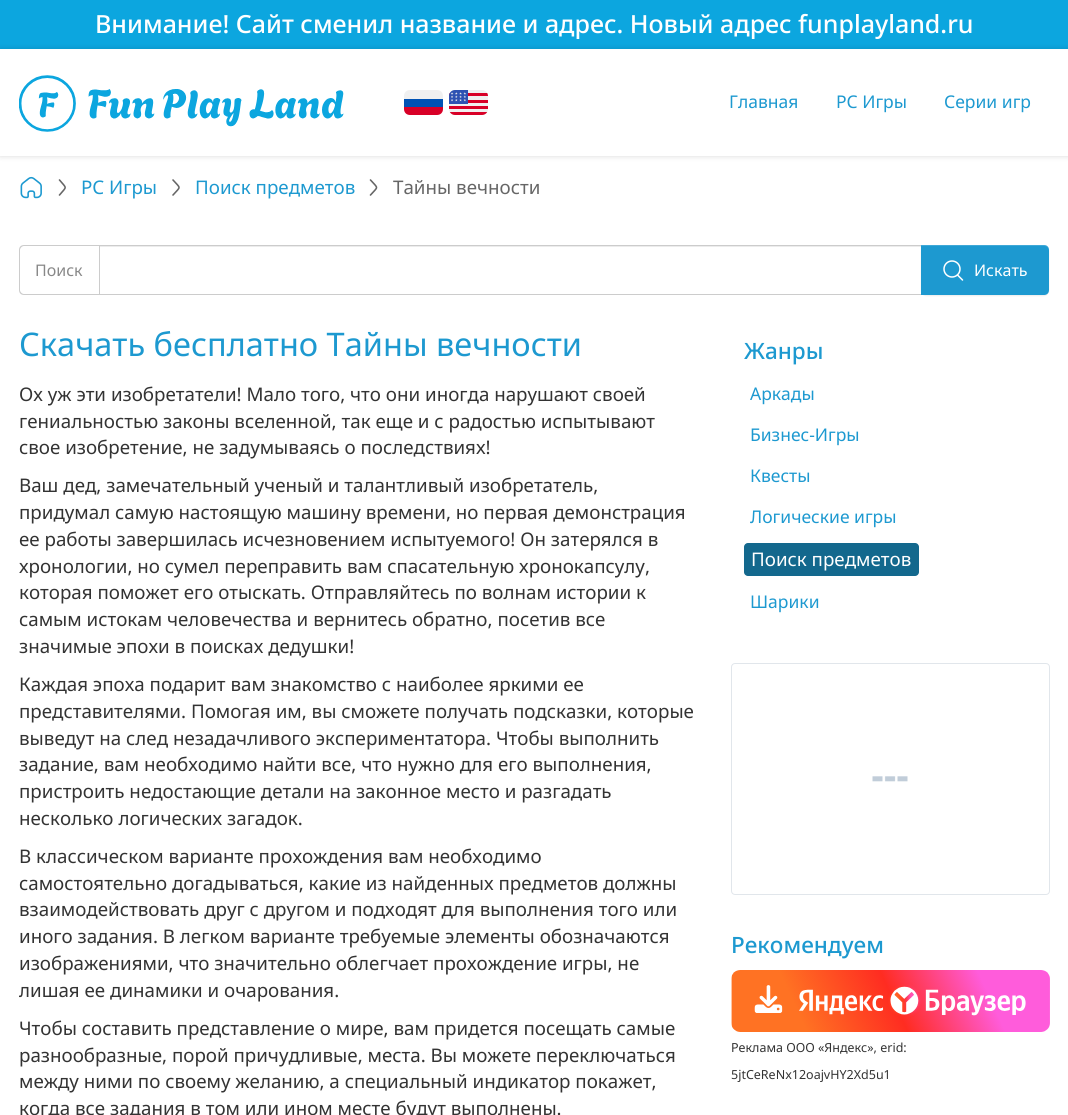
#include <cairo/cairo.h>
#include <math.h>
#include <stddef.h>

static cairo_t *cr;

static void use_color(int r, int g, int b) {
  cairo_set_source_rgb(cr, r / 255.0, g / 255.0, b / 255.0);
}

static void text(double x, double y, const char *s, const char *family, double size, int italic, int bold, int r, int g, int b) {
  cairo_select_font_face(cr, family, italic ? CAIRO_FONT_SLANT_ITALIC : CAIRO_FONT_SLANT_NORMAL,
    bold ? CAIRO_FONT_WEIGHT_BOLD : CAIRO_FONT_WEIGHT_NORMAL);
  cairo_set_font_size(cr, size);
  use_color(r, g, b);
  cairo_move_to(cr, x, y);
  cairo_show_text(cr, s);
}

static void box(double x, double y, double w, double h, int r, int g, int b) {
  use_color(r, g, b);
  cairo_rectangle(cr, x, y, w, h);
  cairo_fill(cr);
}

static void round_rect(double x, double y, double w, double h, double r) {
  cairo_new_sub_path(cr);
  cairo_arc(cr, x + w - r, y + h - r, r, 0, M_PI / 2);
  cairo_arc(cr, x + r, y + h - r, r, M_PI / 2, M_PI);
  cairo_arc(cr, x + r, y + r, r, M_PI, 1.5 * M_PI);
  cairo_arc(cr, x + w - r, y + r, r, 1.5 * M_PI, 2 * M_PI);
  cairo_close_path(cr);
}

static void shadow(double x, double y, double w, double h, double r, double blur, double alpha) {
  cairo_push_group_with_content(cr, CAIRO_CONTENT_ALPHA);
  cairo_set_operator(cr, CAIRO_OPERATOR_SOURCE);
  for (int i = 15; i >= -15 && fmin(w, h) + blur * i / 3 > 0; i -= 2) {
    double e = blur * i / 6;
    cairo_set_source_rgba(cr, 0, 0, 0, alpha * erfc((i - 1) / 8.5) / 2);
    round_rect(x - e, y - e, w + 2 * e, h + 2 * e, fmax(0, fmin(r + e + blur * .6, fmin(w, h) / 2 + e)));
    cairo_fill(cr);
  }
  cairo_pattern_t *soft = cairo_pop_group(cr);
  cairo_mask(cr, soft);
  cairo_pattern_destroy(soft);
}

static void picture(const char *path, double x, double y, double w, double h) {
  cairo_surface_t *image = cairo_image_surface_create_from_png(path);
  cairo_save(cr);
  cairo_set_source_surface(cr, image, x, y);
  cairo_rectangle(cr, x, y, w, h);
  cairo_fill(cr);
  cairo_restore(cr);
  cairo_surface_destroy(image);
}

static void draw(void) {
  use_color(12, 166, 223);
  cairo_paint(cr);
  box(0, 156, 1068, 959, 255, 255, 255);
  use_color(0, 0, 0);
  shadow(0, 49, 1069, 107, 0, 3, 0.15);
  box(0, 49, 1068, 107, 255, 255, 255);
  picture("img_01.png", 19, 75, 325, 57);
  box(404, 99, 39, 8, 0, 82, 180);
  use_color(240, 240, 240);
  cairo_new_path(cr);
  cairo_move_to(cr, 410, 90);
  cairo_line_to(cr, 437, 90);
  cairo_curve_to(cr, 440.5, 90, 443, 92.5, 443, 96);
  cairo_line_to(cr, 443, 99);
  cairo_line_to(cr, 404, 99);
  cairo_line_to(cr, 404, 96);
  cairo_curve_to(cr, 404, 92.5, 406.5, 90, 410, 90);
  cairo_close_path(cr);
  cairo_fill(cr);
  use_color(216, 0, 39);
  cairo_new_path(cr);
  cairo_move_to(cr, 404, 107);
  cairo_line_to(cr, 443, 107);
  cairo_line_to(cr, 443, 109);
  cairo_curve_to(cr, 443, 112.5, 440.5, 115, 437, 115);
  cairo_line_to(cr, 410, 115);
  cairo_curve_to(cr, 406.5, 115, 404, 112.5, 404, 109);
  cairo_close_path(cr);
  cairo_fill(cr);
  picture("img_02.png", 449, 90, 39, 25);
  picture("img_03.png", 20, 176, 22, 23);
  cairo_new_path(cr);
  cairo_move_to(cr, 59.5, 195);
  cairo_curve_to(cr, 67, 186, 67, 189, 59.5, 180);
  use_color(102, 102, 102);
  cairo_set_line_width(cr, 1.6);
  cairo_set_line_cap(cr, CAIRO_LINE_CAP_ROUND);
  cairo_stroke(cr);
  cairo_new_path(cr);
  cairo_move_to(cr, 173, 195);
  cairo_curve_to(cr, 181, 186, 181, 189, 173, 180);
  cairo_stroke(cr);
  cairo_new_path(cr);
  cairo_move_to(cr, 370.5, 195);
  cairo_curve_to(cr, 378.5, 186, 378.5, 189, 370.5, 180);
  cairo_stroke(cr);
  use_color(204, 204, 204);
  cairo_set_fill_rule(cr, CAIRO_FILL_RULE_EVEN_ODD);
  cairo_new_path(cr);
  cairo_move_to(cr, 24, 245);
  cairo_line_to(cr, 99, 245);
  cairo_line_to(cr, 99, 295);
  cairo_line_to(cr, 24, 295);
  cairo_curve_to(cr, 21, 295, 19, 293, 19, 290);
  cairo_line_to(cr, 19, 250);
  cairo_curve_to(cr, 19, 247, 21, 245, 24, 245);
  cairo_close_path(cr);
  cairo_move_to(cr, 24, 246);
  cairo_line_to(cr, 99, 246);
  cairo_line_to(cr, 99, 294);
  cairo_line_to(cr, 24, 294);
  cairo_curve_to(cr, 22, 294, 20, 292, 20, 290);
  cairo_line_to(cr, 20, 250);
  cairo_curve_to(cr, 20, 248, 22, 246, 24, 246);
  cairo_close_path(cr);
  cairo_fill(cr);
  box(100, 246, 821, 1, 236, 236, 236);
  cairo_rectangle(cr, 99.5, 245.5, 823, 49);
  use_color(204, 204, 204);
  cairo_set_line_width(cr, 1);
  cairo_set_line_cap(cr, CAIRO_LINE_CAP_BUTT);
  cairo_stroke(cr);
  use_color(0, 0, 0);
  shadow(921, 246, 128, 50, 5, 0.5, 0.07);
  use_color(29, 153, 208);
  cairo_new_path(cr);
  cairo_move_to(cr, 921, 245);
  cairo_line_to(cr, 1044, 245);
  cairo_curve_to(cr, 1047, 245, 1049, 247, 1049, 250);
  cairo_line_to(cr, 1049, 290);
  cairo_curve_to(cr, 1049, 293, 1047, 295, 1044, 295);
  cairo_line_to(cr, 921, 295);
  cairo_close_path(cr);
  cairo_fill(cr);
  cairo_set_source_rgba(cr, 1, 1, 1, 0.15);
  cairo_set_fill_rule(cr, CAIRO_FILL_RULE_WINDING);
  cairo_new_path(cr);
  cairo_move_to(cr, 921, 246);
  cairo_line_to(cr, 1044, 246);
  cairo_curve_to(cr, 1047, 246, 1049, 248, 1049, 251);
  cairo_line_to(cr, 1049, 250);
  cairo_curve_to(cr, 1049, 247, 1047, 245, 1044, 245);
  cairo_line_to(cr, 921, 245);
  cairo_close_path(cr);
  cairo_fill(cr);
  cairo_arc(cr, 952, 269, 8, 0, 2 * M_PI);
  use_color(255, 255, 255);
  cairo_set_line_width(cr, 1.5);
  cairo_stroke(cr);
  cairo_new_path(cr);
  cairo_move_to(cr, 957.5, 275);
  cairo_line_to(cr, 962.5, 280);
  cairo_set_line_cap(cr, CAIRO_LINE_CAP_ROUND);
  cairo_set_line_join(cr, CAIRO_LINE_JOIN_ROUND);
  cairo_stroke(cr);
  use_color(19, 104, 141);
  round_rect(744, 543, 175, 33, 4);
  cairo_fill(cr);
  picture("img_04.png", 872, 776, 36, 6);
  round_rect(731.5, 663.5, 318, 231, 3.5);
  use_color(225, 230, 235);
  cairo_set_line_width(cr, 1);
  cairo_set_line_cap(cr, CAIRO_LINE_CAP_BUTT);
  cairo_set_line_join(cr, CAIRO_LINE_JOIN_MITER);
  cairo_stroke(cr);
  picture("img_05.png", 731, 970, 319, 62);
  text(95, 33, "Внимание! Сайт сменил название и адрес. Новый адрес funplayland.ru", "Noto Sans Medium", 25, 0, 0, 255, 255, 255);
  text(729, 108, "Главная", "Noto Sans", 17.5, 0, 0, 29, 153, 208);
  text(836, 108, "PC Игры", "Noto Sans", 17.5, 0, 0, 29, 153, 208);
  text(944, 108, "Серии игр", "Noto Sans", 17.5, 0, 0, 29, 153, 208);
  text(81, 194, "PC Игры", "Noto Sans", 18.75, 0, 0, 29, 153, 208);
  text(195, 194, "Поиск предметов", "Noto Sans", 18.75, 0, 0, 29, 153, 208);
  text(393, 194, "Тайны вечности", "Noto Sans", 18.75, 0, 0, 102, 102, 102);
  text(35, 276, "Поиск", "Noto Sans", 16, 0, 0, 136, 136, 136);
  text(974, 276, "Искать", "Noto Sans", 16, 0, 0, 255, 255, 255);
  text(19, 356, "Скачать бесплатно Тайны вечности", "Noto Sans", 32.5, 0, 0, 29, 153, 208);
  text(19, 401, "Ох уж эти изобретатели! Мало того, что они иногда нарушают своей", "Noto Sans", 18.75, 0, 0, 51, 51, 51);
  text(19, 428, "гениальностью законы вселенной, так еще и с радостью испытывают", "Noto Sans", 18.75, 0, 0, 51, 51, 51);
  text(19, 454, "свое изобретение, не задумываясь о последствиях!", "Noto Sans", 18.75, 0, 0, 51, 51, 51);
  text(19, 492, "Ваш дед, замечательный ученый и талантливый изобретатель,", "Noto Sans", 18.75, 0, 0, 51, 51, 51);
  text(19, 519, "придумал самую настоящую машину времени, но первая демонстрация", "Noto Sans", 18.75, 0, 0, 51, 51, 51);
  text(19, 546, "ее работы завершилась исчезновением испытуемого! Он затерялся в", "Noto Sans", 18.75, 0, 0, 51, 51, 51);
  text(19, 573, "хронологии, но сумел переправить вам спасательную хронокапсулу,", "Noto Sans", 18.75, 0, 0, 51, 51, 51);
  text(19, 599, "которая поможет его отыскать. Отправляйтесь по волнам истории к", "Noto Sans", 18.75, 0, 0, 51, 51, 51);
  text(19, 626, "самым истокам человечества и вернитесь обратно, посетив все", "Noto Sans", 18.75, 0, 0, 51, 51, 51);
  text(19, 653, "значимые эпохи в поисках дедушки!", "Noto Sans", 18.75, 0, 0, 51, 51, 51);
  text(19, 691, "Каждая эпоха подарит вам знакомство с наиболее яркими ее", "Noto Sans", 18.75, 0, 0, 51, 51, 51);
  text(19, 718, "представителями. Помогая им, вы сможете получать подсказки, которые", "Noto Sans", 18.75, 0, 0, 51, 51, 51);
  text(19, 745, "выведут на след незадачливого экспериментатора. Чтобы выполнить", "Noto Sans", 18.75, 0, 0, 51, 51, 51);
  text(19, 771, "задание, вам необходимо найти все, что нужно для его выполнения,", "Noto Sans", 18.75, 0, 0, 51, 51, 51);
  text(19, 798, "пристроить недостающие детали на законное место и разгадать", "Noto Sans", 18.75, 0, 0, 51, 51, 51);
  text(19, 825, "несколько логических загадок.", "Noto Sans", 18.75, 0, 0, 51, 51, 51);
  text(19, 863, "В классическом варианте прохождения вам необходимо", "Noto Sans", 18.75, 0, 0, 51, 51, 51);
  text(19, 890, "самостоятельно догадываться, какие из найденных предметов должны", "Noto Sans", 18.75, 0, 0, 51, 51, 51);
  text(19, 916, "взаимодействовать друг с другом и подходят для выполнения того или", "Noto Sans", 18.75, 0, 0, 51, 51, 51);
  text(19, 943, "иного задания. В легком варианте требуемые элементы обозначаются", "Noto Sans", 18.75, 0, 0, 51, 51, 51);
  text(19, 970, "изображениями, что значительно облегчает прохождение игры, не", "Noto Sans", 18.75, 0, 0, 51, 51, 51);
  text(19, 997, "лишая ее динамики и очарования.", "Noto Sans", 18.75, 0, 0, 51, 51, 51);
  text(19, 1035, "Чтобы составить представление о мире, вам придется посещать самые", "Noto Sans", 18.75, 0, 0, 51, 51, 51);
  text(19, 1062, "разнообразные, порой причудливые, места. Вы можете переключаться", "Noto Sans", 18.75, 0, 0, 51, 51, 51);
  text(19, 1088, "между ними по своему желанию, а специальный индикатор покажет,", "Noto Sans", 18.75, 0, 0, 51, 51, 51);
  text(19, 1115, "когда все задания в том или ином месте будут выполнены.", "Noto Sans", 18.75, 0, 0, 51, 51, 51);
  text(744, 359, "Жанры", "Noto Sans Medium", 22.5, 0, 0, 29, 153, 208);
  text(750, 400, "Аркады", "Noto Sans", 17.5, 0, 0, 29, 153, 208);
  text(750, 441, "Бизнес-Игры", "Noto Sans", 17.5, 0, 0, 29, 153, 208);
  text(750, 482, "Квесты", "Noto Sans", 17.5, 0, 0, 29, 153, 208);
  text(750, 523, "Логические игры", "Noto Sans", 17.5, 0, 0, 29, 153, 208);
  text(751, 566, "Поиск предметов", "Noto Sans", 18.75, 0, 0, 255, 255, 255);
  text(750, 608, "Шарики", "Noto Sans", 17.5, 0, 0, 29, 153, 208);
  text(731, 953, "Рекомендуем", "Noto Sans Medium", 22.5, 0, 0, 29, 153, 208);
  text(731, 1052, "Реклама ООО «Яндекс», erid:", "Noto Sans", 12.5, 0, 0, 51, 51, 51);
  text(731, 1079, "5jtCeReNx12oajvHY2Xd5u1", "Noto Sans", 12.5, 0, 0, 51, 51, 51);
}

int main(void) {
  cairo_surface_t *surface = cairo_image_surface_create(CAIRO_FORMAT_RGB24, 1068, 1115);
  cr = cairo_create(surface);
  cairo_font_options_t *options = cairo_font_options_create();
  cairo_font_options_set_hint_metrics(options, CAIRO_HINT_METRICS_OFF);
  cairo_font_options_set_hint_style(options, CAIRO_HINT_STYLE_NONE);
  cairo_set_font_options(cr, options);
  cairo_set_miter_limit(cr, 4);
  draw();
  cairo_surface_write_to_png(surface, "out.png");
  cairo_font_options_destroy(options);
  cairo_destroy(cr);
  cairo_surface_destroy(surface);
  return 0;
}
